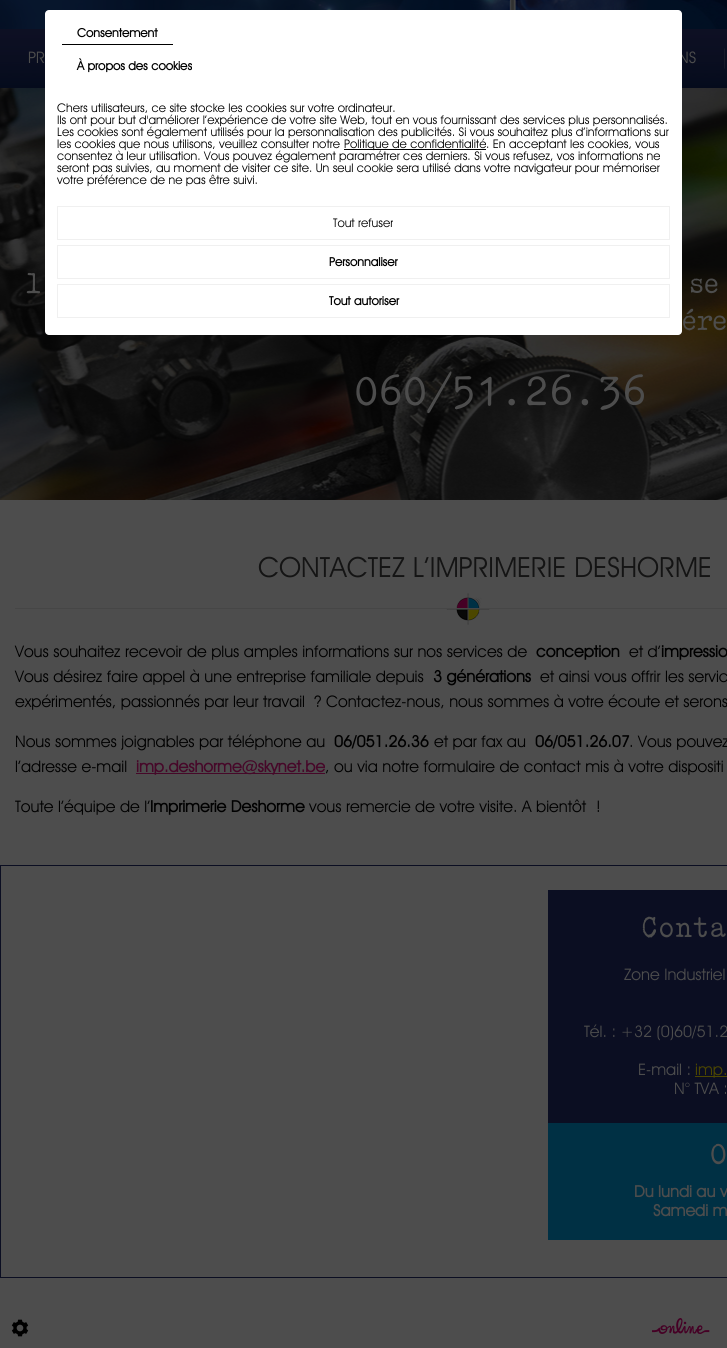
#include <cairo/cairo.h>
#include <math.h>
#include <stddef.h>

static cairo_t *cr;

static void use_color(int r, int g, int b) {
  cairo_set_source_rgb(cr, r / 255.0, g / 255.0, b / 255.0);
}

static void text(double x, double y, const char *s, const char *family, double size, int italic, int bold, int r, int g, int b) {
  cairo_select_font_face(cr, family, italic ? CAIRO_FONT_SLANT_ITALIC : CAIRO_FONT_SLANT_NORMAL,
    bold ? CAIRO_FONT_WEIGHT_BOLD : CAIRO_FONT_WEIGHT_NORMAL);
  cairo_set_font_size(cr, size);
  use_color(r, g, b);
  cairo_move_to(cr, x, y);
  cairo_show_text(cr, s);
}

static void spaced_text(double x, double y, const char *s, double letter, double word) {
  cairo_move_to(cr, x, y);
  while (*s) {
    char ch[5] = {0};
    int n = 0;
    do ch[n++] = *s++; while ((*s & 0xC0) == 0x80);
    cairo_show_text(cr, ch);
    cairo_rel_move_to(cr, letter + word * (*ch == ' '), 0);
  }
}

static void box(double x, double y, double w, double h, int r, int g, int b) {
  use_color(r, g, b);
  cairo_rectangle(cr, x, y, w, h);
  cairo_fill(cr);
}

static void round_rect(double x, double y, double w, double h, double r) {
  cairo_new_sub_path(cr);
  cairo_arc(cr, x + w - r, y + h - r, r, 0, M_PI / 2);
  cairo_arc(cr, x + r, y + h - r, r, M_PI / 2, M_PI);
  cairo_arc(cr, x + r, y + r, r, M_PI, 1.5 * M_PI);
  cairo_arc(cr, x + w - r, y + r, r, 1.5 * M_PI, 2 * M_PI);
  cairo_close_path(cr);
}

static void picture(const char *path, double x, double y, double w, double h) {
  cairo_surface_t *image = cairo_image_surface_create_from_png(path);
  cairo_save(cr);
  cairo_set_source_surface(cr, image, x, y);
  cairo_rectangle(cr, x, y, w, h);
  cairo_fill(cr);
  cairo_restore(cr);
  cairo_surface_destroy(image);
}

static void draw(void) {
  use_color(77, 77, 77);
  cairo_paint(cr);
  picture("img_01.png", 0, 0, 727, 29);
  picture("img_02.png", 470, 0, 178, 10);
  picture("img_03.png", 0, 29, 727, 59);
  picture("img_04.png", 724, 48, 1, 21);
  picture("img_05.png", 0, 88, 727, 412);
  picture("img_06.png", 15, 593, 712, 32);
  box(136, 773, 189, 1, 70, 8, 41);
  cairo_rectangle(cr, 0.5, 865.5, 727, 412);
  use_color(11, 14, 34);
  cairo_set_line_width(cr, 1);
  cairo_stroke(cr);
  box(548, 890, 179, 233, 11, 14, 34);
  box(695, 1076, 32, 1, 77, 71, 0);
  box(548, 1123, 179, 117, 0, 48, 68);
  picture("img_07.png", 11, 1319, 18, 18);
  picture("img_08.png", 652, 1318, 58, 16);
  text(28, 63, "PR", "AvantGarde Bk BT", 16, 0, 0, 77, 77, 77);
  text(678, 63, "NS", "AvantGarde Bk BT", 16, 0, 0, 77, 77, 77);
  use_color(255, 255, 255);
  round_rect(45, 10, 637, 325, 4);
  cairo_fill(cr);
  cairo_rectangle(cr, 57.5, 284.5, 612, 33);
  use_color(240, 240, 240);
  cairo_stroke(cr);
  text(329, 305, "Tout autoriser", "AvantGarde Bk BT", 12, 0, 1, 0, 0, 0);
  cairo_rectangle(cr, 57.5, 245.5, 612, 33);
  use_color(240, 240, 240);
  cairo_stroke(cr);
  text(329, 266, "Personnaliser", "AvantGarde Bk BT", 12, 0, 1, 0, 0, 0);
  cairo_rectangle(cr, 57.5, 206.5, 612, 33);
  use_color(240, 240, 240);
  cairo_stroke(cr);
  text(333, 227, "Tout refuser", "AvantGarde Bk BT", 12, 0, 0, 0, 0, 0);
  box(344, 149, 142, 1, 0, 0, 0);
  text(344, 148, "Politique de confidentialité", "AvantGarde Bk BT", 12, 0, 0, 0, 0, 0);
  text(77, 70, "À propos des cookies", "AvantGarde Bk BT", 12, 0, 1, 0, 0, 0);
  text(77, 37, "Consentement", "AvantGarde Bk BT", 12, 0, 1, 0, 0, 0);
  box(62, 44, 111, 1, 0, 0, 0);
  text(57, 184, "votre préférence de ne pas être suivi.", "AvantGarde Bk BT", 12, 0, 0, 0, 0, 0);
  text(57, 172, "seront pas suivies, au moment de visiter ce site. Un seul cookie sera utilisé dans votre navigateur pour mémoriser", "AvantGarde Bk BT", 12, 0, 0, 0, 0, 0);
  text(57, 160, "consentez à leur utilisation. Vous pouvez également paramétrer ces derniers. Si vous refusez, vos informations ne", "AvantGarde Bk BT", 12, 0, 0, 0, 0, 0);
  text(486, 148, ". En acceptant les cookies, vous", "AvantGarde Bk BT", 12, 0, 0, 0, 0, 0);
  text(57, 148, "les cookies que nous utilisons, veuillez consulter notre", "AvantGarde Bk BT", 12, 0, 0, 0, 0, 0);
  text(57, 136, "Les cookies sont également utilisés pour la personnalisation des publicités. Si vous souhaitez plus d’informations sur", "AvantGarde Bk BT", 12, 0, 0, 0, 0, 0);
  text(57, 124, "Ils ont pour but d'améliorer l’expérience de votre site Web, tout en vous fournissant des services plus personnalisés.", "AvantGarde Bk BT", 12, 0, 0, 0, 0, 0);
  text(57, 112, "Chers utilisateurs, ce site stocke les cookies sur votre ordinateur.", "AvantGarde Bk BT", 12, 0, 0, 0, 0, 0);
  cairo_select_font_face(cr, "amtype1", CAIRO_FONT_SLANT_NORMAL, CAIRO_FONT_WEIGHT_NORMAL);
  cairo_set_font_size(cr, 28);
  use_color(77, 77, 77);
  spaced_text(25, 293, "l", -2, 0);
  spaced_text(688, 293, "se", -2, 0);
  spaced_text(681, 330, "ére", -2, 0);
  text(354, 405, "060/51.26.36", "amtype1", 40, 0, 0, 77, 77, 77);
  text(258, 577, "CONTACTEZ L’IMPRIMERIE DESHORME", "AvantGarde Bk BT", 28, 0, 0, 20, 20, 20);
  text(15, 657, "Vous souhaitez recevoir de plus amples informations sur nos services de", "AvantGarde Bk BT", 16, 0, 0, 0, 0, 0);
  text(536, 657, "conception", "AvantGarde Bk BT", 16, 0, 1, 0, 0, 0);
  text(629, 657, "et d’", "AvantGarde Bk BT", 16, 0, 0, 0, 0, 0);
  text(661, 657, "impressio", "AvantGarde Bk BT", 16, 0, 1, 0, 0, 0);
  text(15, 682, "Vous désirez faire appel à une entreprise familiale depuis", "AvantGarde Bk BT", 16, 0, 0, 0, 0, 0);
  text(433, 682, "3 générations", "AvantGarde Bk BT", 16, 0, 1, 0, 0, 0);
  text(540, 682, "et ainsi vous offrir les servic", "AvantGarde Bk BT", 16, 0, 0, 0, 0, 0);
  text(15, 707, "expérimentés, passionnés par leur travail", "AvantGarde Bk BT", 16, 0, 0, 0, 0, 0);
  text(314, 707, "? Contactez-nous, nous sommes à votre écoute et serons", "AvantGarde Bk BT", 16, 0, 0, 0, 0, 0);
  text(15, 747, "Nous sommes joignables par téléphone au", "AvantGarde Bk BT", 16, 0, 0, 0, 0, 0);
  text(334, 747, "06/051.26.36", "AvantGarde Bk BT", 16, 0, 1, 0, 0, 0);
  text(434, 747, "et par fax au", "AvantGarde Bk BT", 16, 0, 0, 0, 0, 0);
  text(535, 747, "06/051.26.07", "AvantGarde Bk BT", 16, 0, 1, 0, 0, 0);
  text(629, 747, ". Vous pouvez", "AvantGarde Bk BT", 16, 0, 0, 0, 0, 0);
  text(15, 772, "l’adresse e-mail", "AvantGarde Bk BT", 16, 0, 0, 0, 0, 0);
  text(136, 772, "imp.deshorme@skynet.be", "AvantGarde Bk BT", 16, 0, 1, 70, 8, 41);
  text(325, 772, ", ou via notre formulaire de contact mis à votre dispositi", "AvantGarde Bk BT", 16, 0, 0, 0, 0, 0);
  text(15, 812, "Toute l’équipe de l’", "AvantGarde Bk BT", 16, 0, 0, 0, 0, 0);
  text(150, 812, "Imprimerie Deshorme", "AvantGarde Bk BT", 16, 0, 1, 0, 0, 0);
  text(309, 812, "vous remercie de votre visite. A bientôt", "AvantGarde Bk BT", 16, 0, 0, 0, 0, 0);
  text(596, 812, "!", "AvantGarde Bk BT", 16, 0, 0, 0, 0, 0);
  text(641, 937, "Conta", "amtype1", 28, 0, 0, 77, 77, 77);
  text(624, 980, "Zone Industriel", "AvantGarde Bk BT", 16, 0, 0, 77, 77, 77);
  text(584, 1037, "Tél. : +32 (0)60/51.2", "AvantGarde Bk BT", 16, 0, 0, 77, 77, 77);
  text(638, 1075, "E-mail :", "AvantGarde Bk BT", 16, 0, 0, 77, 77, 77);
  text(695, 1075, "imp.", "AvantGarde Bk BT", 16, 0, 0, 77, 71, 0);
  text(674, 1094, "N° TVA :", "AvantGarde Bk BT", 16, 0, 0, 77, 77, 77);
  text(710, 1164, "O", "amtype1", 28, 0, 0, 77, 77, 77);
  text(634, 1197, "Du lundi au v", "AvantGarde Bk BT", 16, 0, 1, 77, 77, 77);
  text(653, 1216, "Samedi m", "AvantGarde Bk BT", 16, 0, 1, 77, 77, 77);
}

int main(void) {
  cairo_surface_t *surface = cairo_image_surface_create(CAIRO_FORMAT_RGB24, 727, 1348);
  cr = cairo_create(surface);
  cairo_font_options_t *options = cairo_font_options_create();
  cairo_font_options_set_hint_metrics(options, CAIRO_HINT_METRICS_OFF);
  cairo_font_options_set_hint_style(options, CAIRO_HINT_STYLE_NONE);
  cairo_set_font_options(cr, options);
  cairo_set_miter_limit(cr, 4);
  draw();
  cairo_surface_write_to_png(surface, "out.png");
  cairo_font_options_destroy(options);
  cairo_destroy(cr);
  cairo_surface_destroy(surface);
  return 0;
}
